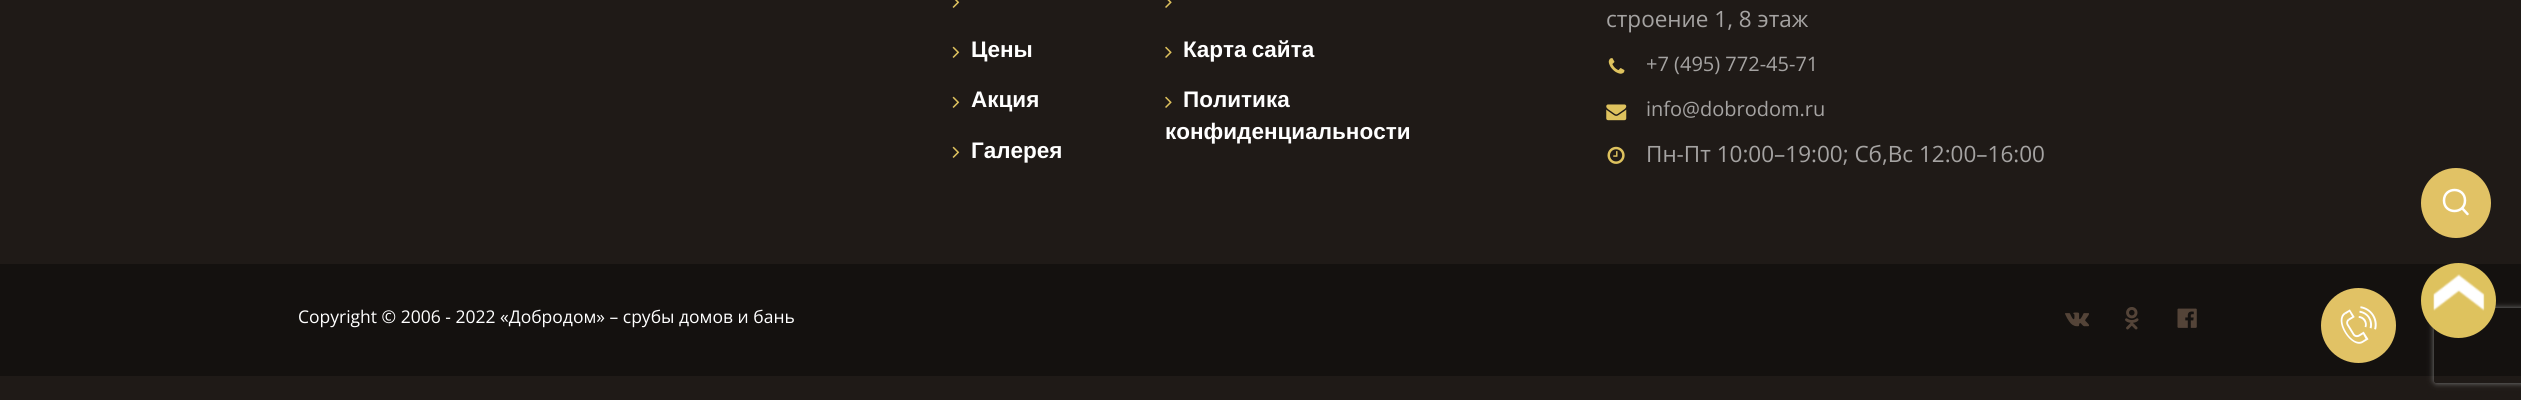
#include <cairo/cairo.h>
#include <math.h>
#include <stddef.h>

static cairo_t *cr;

static void use_color(int r, int g, int b) {
  cairo_set_source_rgb(cr, r / 255.0, g / 255.0, b / 255.0);
}

static void text(double x, double y, const char *s, const char *family, double size, int italic, int bold, int r, int g, int b) {
  cairo_select_font_face(cr, family, italic ? CAIRO_FONT_SLANT_ITALIC : CAIRO_FONT_SLANT_NORMAL,
    bold ? CAIRO_FONT_WEIGHT_BOLD : CAIRO_FONT_WEIGHT_NORMAL);
  cairo_set_font_size(cr, size);
  use_color(r, g, b);
  cairo_move_to(cr, x, y);
  cairo_show_text(cr, s);
}

static void spaced_text(double x, double y, const char *s, double letter, double word) {
  cairo_move_to(cr, x, y);
  while (*s) {
    char ch[5] = {0};
    int n = 0;
    do ch[n++] = *s++; while ((*s & 0xC0) == 0x80);
    cairo_show_text(cr, ch);
    cairo_rel_move_to(cr, letter + word * (*ch == ' '), 0);
  }
}

static void box(double x, double y, double w, double h, int r, int g, int b) {
  use_color(r, g, b);
  cairo_rectangle(cr, x, y, w, h);
  cairo_fill(cr);
}

static void round_rect(double x, double y, double w, double h, double r) {
  cairo_new_sub_path(cr);
  cairo_arc(cr, x + w - r, y + h - r, r, 0, M_PI / 2);
  cairo_arc(cr, x + r, y + h - r, r, M_PI / 2, M_PI);
  cairo_arc(cr, x + r, y + r, r, M_PI, 1.5 * M_PI);
  cairo_arc(cr, x + w - r, y + r, r, 1.5 * M_PI, 2 * M_PI);
  cairo_close_path(cr);
}

static void shadow(double x, double y, double w, double h, double r, double blur, double alpha) {
  cairo_push_group_with_content(cr, CAIRO_CONTENT_ALPHA);
  cairo_set_operator(cr, CAIRO_OPERATOR_SOURCE);
  for (int i = 15; i >= -15 && fmin(w, h) + blur * i / 3 > 0; i -= 2) {
    double e = blur * i / 6;
    cairo_set_source_rgba(cr, 0, 0, 0, alpha * erfc((i - 1) / 8.5) / 2);
    round_rect(x - e, y - e, w + 2 * e, h + 2 * e, fmax(0, fmin(r + e + blur * .6, fmin(w, h) / 2 + e)));
    cairo_fill(cr);
  }
  cairo_pattern_t *soft = cairo_pop_group(cr);
  cairo_mask(cr, soft);
  cairo_pattern_destroy(soft);
}

static void picture(const char *path, double x, double y, double w, double h) {
  cairo_surface_t *image = cairo_image_surface_create_from_png(path);
  cairo_save(cr);
  cairo_set_source_surface(cr, image, x, y);
  cairo_rectangle(cr, x, y, w, h);
  cairo_fill(cr);
  cairo_restore(cr);
  cairo_surface_destroy(image);
}

static void draw(void) {
  use_color(31, 26, 23);
  cairo_paint(cr);
  picture("img_01.png", 952, 0, 8, 8);
  picture("img_02.png", 1165, 0, 7, 8);
  picture("img_03.png", 952, 46, 8, 12);
  picture("img_04.png", 1165, 46, 7, 12);
  picture("img_03.png", 952, 96, 8, 12);
  picture("img_04.png", 1165, 96, 7, 12);
  picture("img_03.png", 952, 146, 8, 12);
  picture("img_05.png", 1608, 58, 17, 16);
  picture("img_06.png", 1606, 104, 21, 17);
  picture("img_07.png", 1607, 146, 18, 18);
  use_color(225, 194, 101);
  cairo_arc(cr, 2456, 203, 35, 0, 2 * M_PI);
  cairo_fill(cr);
  cairo_new_path(cr);
  cairo_move_to(cr, 2467.5, 214);
  cairo_line_to(cr, 2462, 208);
  cairo_move_to(cr, 2465, 200.5);
  cairo_curve_to(cr, 2465, 214.5, 2444, 214.5, 2444, 200.5);
  cairo_curve_to(cr, 2444, 186.5, 2465, 186.5, 2465, 200.5);
  cairo_close_path(cr);
  use_color(255, 255, 255);
  cairo_set_line_width(cr, 2.5);
  cairo_set_line_cap(cr, CAIRO_LINE_CAP_ROUND);
  cairo_stroke(cr);
  box(0, 264, 2521, 112, 20, 17, 15);
  picture("img_08.png", 2065, 312, 24, 15);
  picture("img_09.png", 2125, 307, 14, 23);
  picture("img_10.png", 2177, 308, 20, 20);
  cairo_save(cr);
  cairo_set_fill_rule(cr, CAIRO_FILL_RULE_EVEN_ODD);
  cairo_new_path(cr);
  cairo_move_to(cr, 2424, 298);
  cairo_line_to(cr, 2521, 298);
  cairo_line_to(cr, 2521, 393);
  cairo_line_to(cr, 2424, 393);
  cairo_close_path(cr);
  cairo_move_to(cr, 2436.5, 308);
  cairo_line_to(cr, 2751.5, 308);
  cairo_curve_to(cr, 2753, 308, 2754, 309, 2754, 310.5);
  cairo_line_to(cr, 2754, 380.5);
  cairo_curve_to(cr, 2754, 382, 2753, 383, 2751.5, 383);
  cairo_line_to(cr, 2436.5, 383);
  cairo_curve_to(cr, 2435, 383, 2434, 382, 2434, 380.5);
  cairo_line_to(cr, 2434, 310.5);
  cairo_curve_to(cr, 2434, 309, 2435, 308, 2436.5, 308);
  cairo_close_path(cr);
  cairo_clip(cr);
  use_color(128, 128, 128);
  shadow(2434, 308, 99, 75, 2.5, 3, 1);
  cairo_restore(cr);
  use_color(222, 194, 94);
  cairo_arc(cr, 2458.5, 300.5, 37.5, 0, 2 * M_PI);
  cairo_fill(cr);
  picture("img_11.png", 2433, 274, 52, 37);
  use_color(225, 194, 101);
  cairo_arc(cr, 2358.5, 325.5, 37.5, 0, 2 * M_PI);
  cairo_fill(cr);
  picture("img_12.png", 2340, 306, 37, 38);
  text(971, 57, "Цены", "Liberation Sans", 22.5, 0, 1, 255, 255, 255);
  spaced_text(1183, 57, "Карта сайта", 0, -1);
  text(971, 107, "Акция", "Liberation Sans", 22.5, 0, 1, 255, 255, 255);
  text(1183, 107, "Политика", "Liberation Sans", 22.5, 0, 1, 255, 255, 255);
  text(1165, 139, "конфиденциальности", "Liberation Sans", 22.5, 0, 1, 255, 255, 255);
  text(971, 158, "Галерея", "Liberation Sans", 22.5, 0, 1, 255, 255, 255);
  text(1606, 27, "строение 1, 8 этаж", "Open Sans", 22.5, 0, 0, 165, 163, 162);
  text(1646, 71, "+7 (495) 772-45-71", "Open Sans", 20, 0, 0, 165, 163, 162);
  text(1646, 116, "info@dobrodom.ru", "Open Sans", 20, 0, 0, 165, 163, 162);
  text(1646, 162, "Пн-Пт 10:00–19:00; Сб,Вс 12:00–16:00", "Open Sans", 22.5, 0, 0, 165, 163, 162);
  text(298, 323, "Copyright © 2006 - 2022 «Добродом» – срубы домов и бань", "Open Sans", 17.5, 0, 0, 255, 255, 255);
}

int main(void) {
  cairo_surface_t *surface = cairo_image_surface_create(CAIRO_FORMAT_RGB24, 2521, 400);
  cr = cairo_create(surface);
  cairo_font_options_t *options = cairo_font_options_create();
  cairo_font_options_set_hint_metrics(options, CAIRO_HINT_METRICS_OFF);
  cairo_font_options_set_hint_style(options, CAIRO_HINT_STYLE_NONE);
  cairo_set_font_options(cr, options);
  cairo_set_miter_limit(cr, 4);
  draw();
  cairo_surface_write_to_png(surface, "out.png");
  cairo_font_options_destroy(options);
  cairo_destroy(cr);
  cairo_surface_destroy(surface);
  return 0;
}
